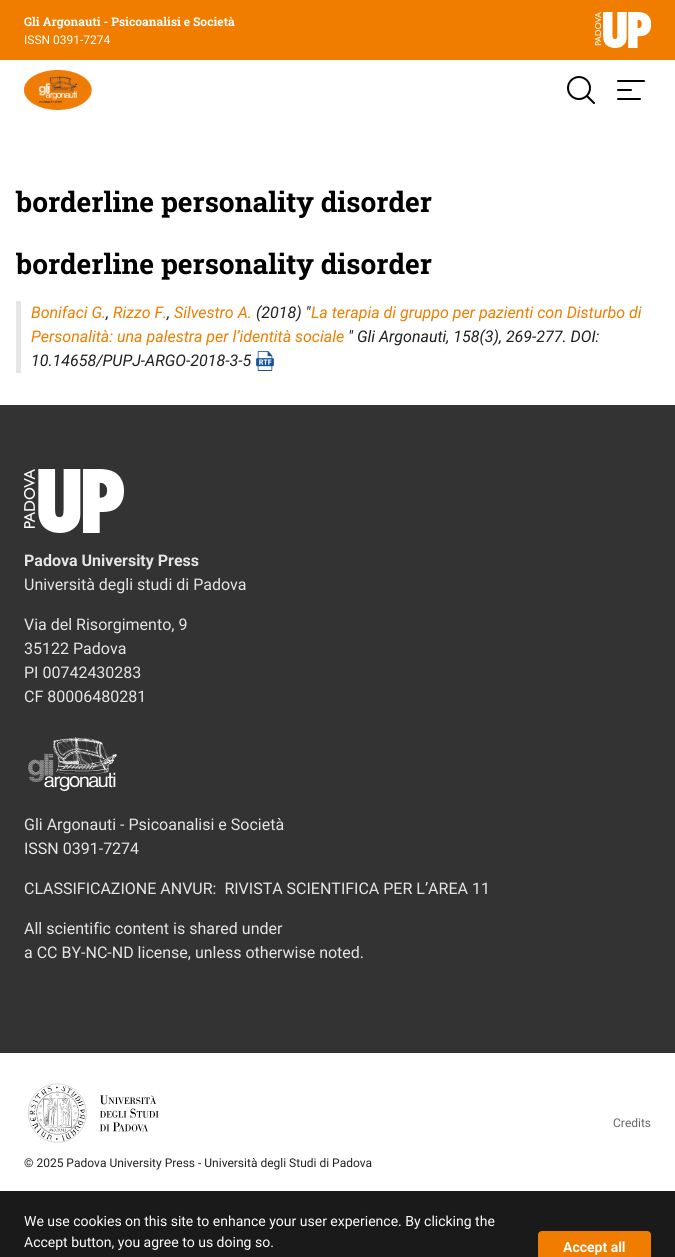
#include <cairo/cairo.h>
#include <math.h>
#include <stddef.h>

static cairo_t *cr;

static void use_color(int r, int g, int b) {
  cairo_set_source_rgb(cr, r / 255.0, g / 255.0, b / 255.0);
}

static void text(double x, double y, const char *s, const char *family, double size, int italic, int bold, int r, int g, int b) {
  cairo_select_font_face(cr, family, italic ? CAIRO_FONT_SLANT_ITALIC : CAIRO_FONT_SLANT_NORMAL,
    bold ? CAIRO_FONT_WEIGHT_BOLD : CAIRO_FONT_WEIGHT_NORMAL);
  cairo_set_font_size(cr, size);
  use_color(r, g, b);
  cairo_move_to(cr, x, y);
  cairo_show_text(cr, s);
}

static void box(double x, double y, double w, double h, int r, int g, int b) {
  use_color(r, g, b);
  cairo_rectangle(cr, x, y, w, h);
  cairo_fill(cr);
}

static void round_rect(double x, double y, double w, double h, double r) {
  cairo_new_sub_path(cr);
  cairo_arc(cr, x + w - r, y + h - r, r, 0, M_PI / 2);
  cairo_arc(cr, x + r, y + h - r, r, M_PI / 2, M_PI);
  cairo_arc(cr, x + r, y + r, r, M_PI, 1.5 * M_PI);
  cairo_arc(cr, x + w - r, y + r, r, 1.5 * M_PI, 2 * M_PI);
  cairo_close_path(cr);
}

static void picture(const char *path, double x, double y, double w, double h) {
  cairo_surface_t *image = cairo_image_surface_create_from_png(path);
  cairo_save(cr);
  cairo_set_source_surface(cr, image, x, y);
  cairo_rectangle(cr, x, y, w, h);
  cairo_fill(cr);
  cairo_restore(cr);
  cairo_surface_destroy(image);
}

static void draw(void) {
  use_color(255, 255, 255);
  cairo_paint(cr);
  box(0, 0, 675, 60, 240, 125, 0);
  picture("img_01.png", 595, 12, 56, 36);
  picture("img_02.png", 24, 70, 68, 40);
  picture("img_03.png", 567, 76, 28, 28);
  picture("img_04.png", 617, 80, 28, 20);
  box(16, 301, 5, 72, 229, 229, 229);
  picture("img_05.png", 256, 351, 18, 20);
  box(0, 405, 675, 648, 51, 51, 51);
  picture("img_06.png", 24, 469, 100, 64);
  picture("img_07.png", 28, 737, 89, 54);
  picture("img_08.png", 28, 1083, 131, 60);
  box(0, 1191, 675, 66, 26, 26, 26);
  use_color(240, 125, 0);
  round_rect(538.5, 1231.5, 112, 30, 3.5);
  cairo_fill_preserve(cr);
  cairo_set_line_width(cr, 1);
  cairo_stroke(cr);
  text(24, 26, "Gli Argonauti - Psicoanalisi e Società", "Roboto Slab", 12, 0, 1, 255, 255, 255);
  text(24, 44, "ISSN 0391-7274", "Roboto", 12, 0, 0, 255, 255, 255);
  text(16, 212, "borderline personality disorder", "Roboto Slab", 28, 0, 1, 0, 0, 0);
  cairo_save(cr);
  cairo_rectangle(cr, 16, 243, 643, 42);
  cairo_clip(cr);
  text(16, 274, "borderline personality disorder", "Roboto Slab", 28, 0, 1, 0, 0, 0);
  cairo_restore(cr);
  text(31, 318, "Bonifaci G.", "Roboto", 16, 1, 0, 240, 125, 0);
  text(106, 318, ",", "Roboto", 16, 1, 0, 33, 33, 33);
  text(113, 318, "Rizzo F.", "Roboto", 16, 1, 0, 240, 125, 0);
  text(167, 318, ",", "Roboto", 16, 1, 0, 33, 33, 33);
  text(174, 318, "Silvestro A.", "Roboto", 16, 1, 0, 240, 125, 0);
  text(256, 318, "(2018) \"", "Roboto", 16, 1, 0, 33, 33, 33);
  text(311, 318, "La terapia di gruppo per pazienti con Disturbo di", "Roboto", 16, 1, 0, 240, 125, 0);
  text(31, 342, "Personalità: una palestra per l’identità sociale", "Roboto", 16, 1, 0, 240, 125, 0);
  text(348, 342, "\" Gli Argonauti, 158(3), 269-277. DOI:", "Roboto", 16, 1, 0, 33, 33, 33);
  text(31, 366, "10.14658/PUPJ-ARGO-2018-3-5", "Roboto", 16, 1, 0, 33, 33, 33);
  text(24, 566, "Padova University Press", "Roboto", 16, 0, 1, 229, 229, 229);
  text(24, 590, "Università degli studi di Padova", "Roboto", 16, 0, 0, 229, 229, 229);
  text(24, 630, "Via del Risorgimento, 9", "Roboto", 16, 0, 0, 229, 229, 229);
  text(24, 654, "35122 Padova", "Roboto", 16, 0, 0, 229, 229, 229);
  text(24, 678, "PI 00742430283", "Roboto", 16, 0, 0, 229, 229, 229);
  text(24, 702, "CF 80006480281", "Roboto", 16, 0, 0, 229, 229, 229);
  text(24, 830, "Gli Argonauti - Psicoanalisi e Società", "Roboto", 16, 0, 0, 229, 229, 229);
  text(24, 854, "ISSN 0391-7274", "Roboto", 16, 0, 0, 229, 229, 229);
  text(24, 894, "CLASSIFICAZIONE ANVUR:  RIVISTA SCIENTIFICA PER L’AREA 11", "Roboto", 16, 0, 0, 229, 229, 229);
  text(24, 934, "All scientific content is shared under", "Roboto", 16, 0, 0, 229, 229, 229);
  text(24, 958, "a CC BY-NC-ND license, unless otherwise noted.", "Roboto", 16, 0, 0, 229, 229, 229);
  text(613, 1127, "Credits", "Roboto", 12, 0, 0, 102, 102, 102);
  text(24, 1167, "© 2025 Padova University Press - Università degli Studi di Padova", "Roboto", 12, 0, 0, 33, 33, 33);
  text(24, 1226, "We use cookies on this site to enhance your user experience. By clicking the", "Roboto", 14, 0, 0, 255, 255, 255);
  text(24, 1247, "Accept button, you agree to us doing so.", "Roboto", 14, 0, 0, 255, 255, 255);
  text(563, 1252, "Accept all", "Roboto", 14, 0, 1, 255, 255, 255);
}

int main(void) {
  cairo_surface_t *surface = cairo_image_surface_create(CAIRO_FORMAT_RGB24, 675, 1257);
  cr = cairo_create(surface);
  cairo_font_options_t *options = cairo_font_options_create();
  cairo_font_options_set_hint_metrics(options, CAIRO_HINT_METRICS_OFF);
  cairo_font_options_set_hint_style(options, CAIRO_HINT_STYLE_NONE);
  cairo_set_font_options(cr, options);
  cairo_set_miter_limit(cr, 4);
  draw();
  cairo_surface_write_to_png(surface, "out.png");
  cairo_font_options_destroy(options);
  cairo_destroy(cr);
  cairo_surface_destroy(surface);
  return 0;
}
